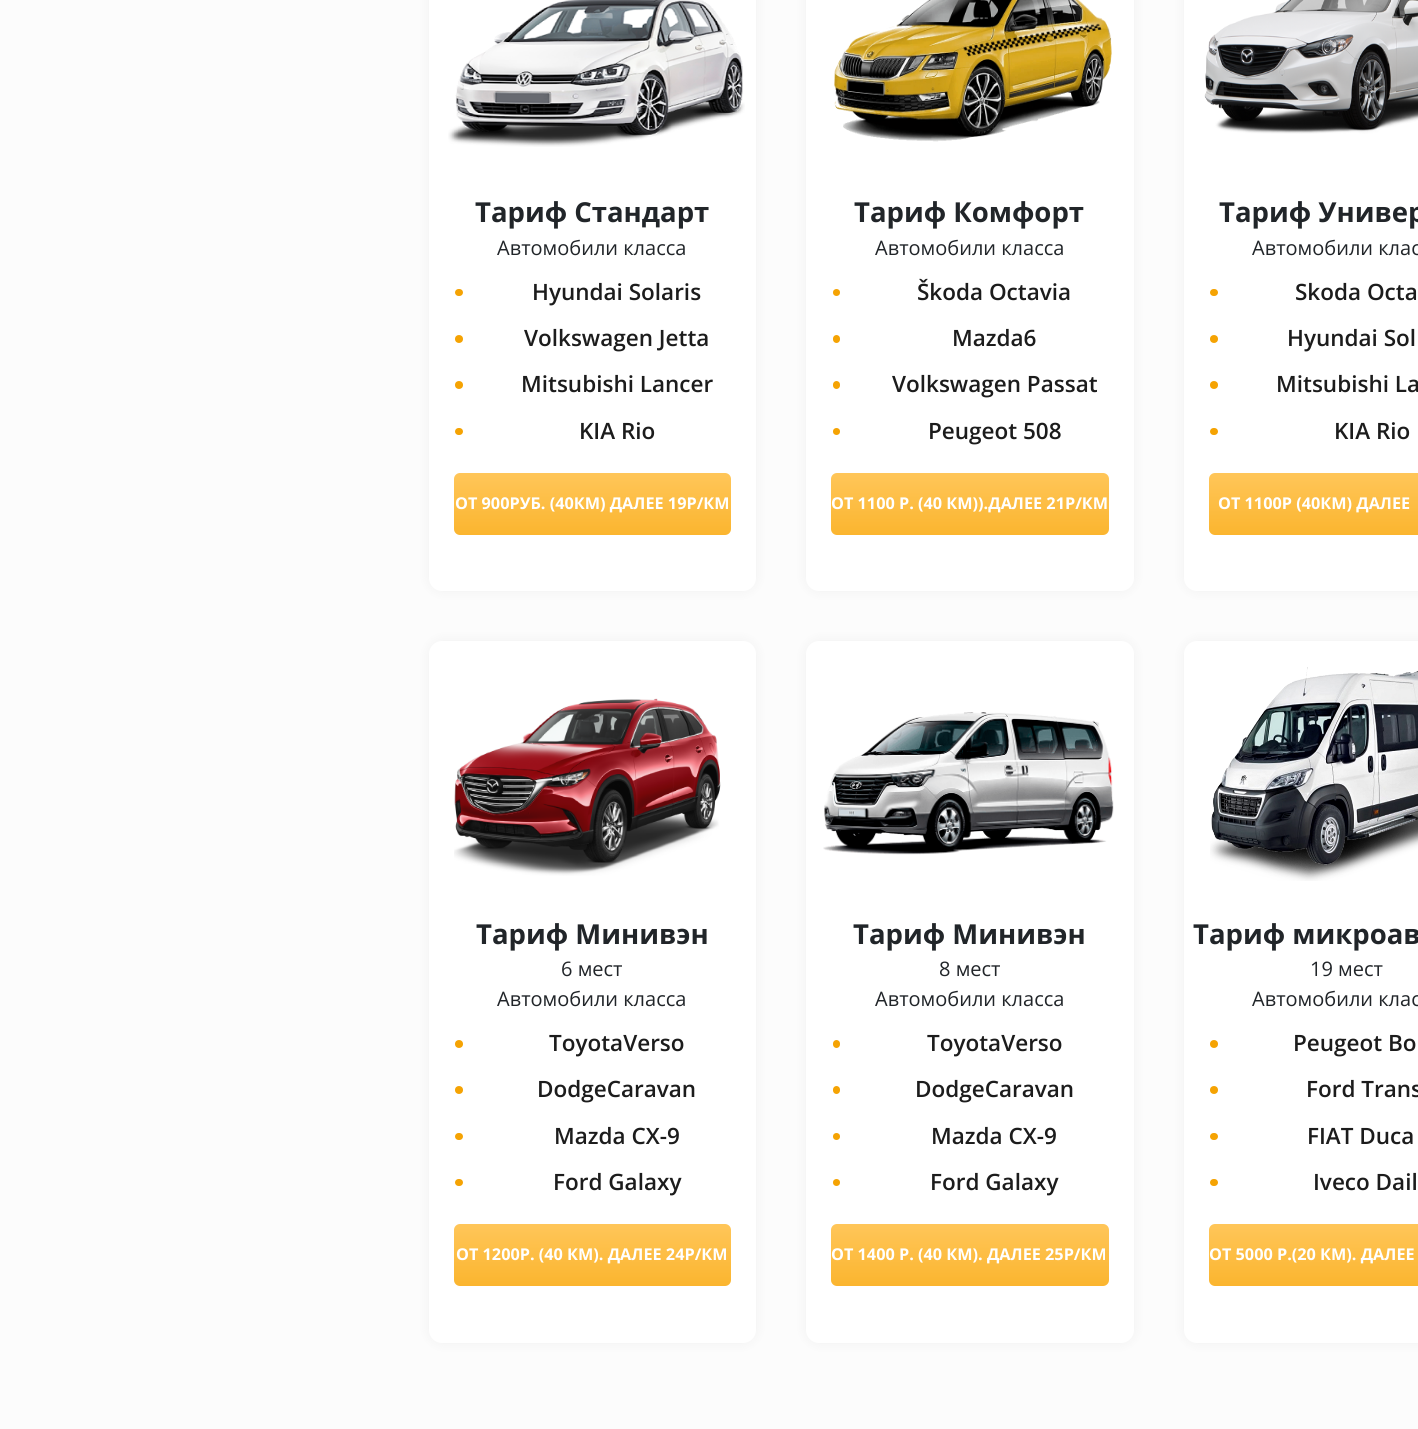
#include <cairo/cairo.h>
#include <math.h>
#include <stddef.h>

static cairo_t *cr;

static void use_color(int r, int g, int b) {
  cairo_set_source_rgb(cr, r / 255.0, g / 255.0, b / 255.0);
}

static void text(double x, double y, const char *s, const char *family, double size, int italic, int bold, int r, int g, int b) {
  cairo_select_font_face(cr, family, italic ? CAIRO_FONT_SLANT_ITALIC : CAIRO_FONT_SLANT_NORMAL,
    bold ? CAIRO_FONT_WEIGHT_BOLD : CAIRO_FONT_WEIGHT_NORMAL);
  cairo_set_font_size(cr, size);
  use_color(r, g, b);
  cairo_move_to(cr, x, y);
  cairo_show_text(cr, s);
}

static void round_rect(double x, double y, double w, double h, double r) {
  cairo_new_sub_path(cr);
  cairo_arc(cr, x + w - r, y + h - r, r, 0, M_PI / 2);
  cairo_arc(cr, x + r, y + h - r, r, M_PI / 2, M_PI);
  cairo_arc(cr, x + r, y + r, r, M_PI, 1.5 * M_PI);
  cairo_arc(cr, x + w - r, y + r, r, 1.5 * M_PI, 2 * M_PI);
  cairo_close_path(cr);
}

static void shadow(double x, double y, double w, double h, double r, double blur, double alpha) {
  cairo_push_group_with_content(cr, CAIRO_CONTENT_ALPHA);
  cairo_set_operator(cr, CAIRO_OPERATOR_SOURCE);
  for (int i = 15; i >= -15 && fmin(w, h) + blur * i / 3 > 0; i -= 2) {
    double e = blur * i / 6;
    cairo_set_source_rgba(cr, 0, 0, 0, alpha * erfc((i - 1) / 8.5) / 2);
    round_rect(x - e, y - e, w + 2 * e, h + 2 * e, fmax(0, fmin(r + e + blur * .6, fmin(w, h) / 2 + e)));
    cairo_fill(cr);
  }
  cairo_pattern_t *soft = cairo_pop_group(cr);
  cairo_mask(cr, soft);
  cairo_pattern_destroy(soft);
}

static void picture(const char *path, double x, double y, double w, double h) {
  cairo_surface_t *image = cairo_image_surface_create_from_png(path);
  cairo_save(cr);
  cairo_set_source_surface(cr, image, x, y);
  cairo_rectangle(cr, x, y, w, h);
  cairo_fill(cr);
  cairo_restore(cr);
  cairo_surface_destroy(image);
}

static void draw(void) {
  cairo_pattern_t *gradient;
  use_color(252, 252, 252);
  cairo_paint(cr);
  use_color(0, 0, 0);
  shadow(429, -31, 327, 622, 13, 6, 0.05);
  use_color(255, 255, 255);
  round_rect(429, -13, 327, 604, 13);
  cairo_fill(cr);
  picture("img_01.png", 448, 0, 297, 147);
  use_color(245, 163, 3);
  round_rect(455, 289, 8, 7, 3.5);
  cairo_fill(cr);
  cairo_arc(cr, 459, 339, 4, 0, 2 * M_PI);
  cairo_fill(cr);
  cairo_arc(cr, 459, 385, 4, 0, 2 * M_PI);
  cairo_fill(cr);
  round_rect(455, 428, 8, 7, 3.5);
  cairo_fill(cr);
  gradient = cairo_pattern_create_linear(593, 535, 593, 473);
  cairo_pattern_add_color_stop_rgba(gradient, 0, 0.984, 0.71, 0.184, 1);
  cairo_pattern_add_color_stop_rgba(gradient, 1, 1, 0.776, 0.349, 1);
  cairo_set_source(cr, gradient);
  cairo_pattern_destroy(gradient);
  round_rect(454, 473, 277, 62, 6);
  cairo_fill(cr);
  use_color(0, 0, 0);
  shadow(806, -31, 328, 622, 13, 6, 0.05);
  use_color(255, 255, 255);
  round_rect(806, -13, 328, 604, 13);
  cairo_fill(cr);
  picture("img_02.png", 834, 0, 278, 142);
  use_color(245, 163, 3);
  cairo_arc(cr, 836.5, 292.5, 3.5, 0, 2 * M_PI);
  cairo_fill(cr);
  round_rect(833, 335, 7, 8, 3.5);
  cairo_fill(cr);
  round_rect(833, 381, 7, 8, 3.5);
  cairo_fill(cr);
  cairo_arc(cr, 836.5, 431.5, 3.5, 0, 2 * M_PI);
  cairo_fill(cr);
  gradient = cairo_pattern_create_linear(970, 535, 970, 473);
  cairo_pattern_add_color_stop_rgba(gradient, 0, 0.984, 0.71, 0.184, 1);
  cairo_pattern_add_color_stop_rgba(gradient, 1, 1, 0.776, 0.349, 1);
  cairo_set_source(cr, gradient);
  cairo_pattern_destroy(gradient);
  round_rect(831, 473, 278, 62, 6);
  cairo_fill(cr);
  use_color(0, 0, 0);
  shadow(1184, -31, 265, 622, 13, 6, 0.05);
  use_color(255, 255, 255);
  round_rect(1184, -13, 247, 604, 13);
  cairo_fill(cr);
  picture("img_03.png", 1204, 0, 214, 134);
  use_color(245, 163, 3);
  round_rect(1210, 289, 8, 7, 3.5);
  cairo_fill(cr);
  cairo_arc(cr, 1214, 339, 4, 0, 2 * M_PI);
  cairo_fill(cr);
  cairo_arc(cr, 1214, 385, 4, 0, 2 * M_PI);
  cairo_fill(cr);
  round_rect(1210, 428, 8, 7, 3.5);
  cairo_fill(cr);
  gradient = cairo_pattern_create_linear(1348, 535, 1348, 473);
  cairo_pattern_add_color_stop_rgba(gradient, 0, 0.984, 0.71, 0.184, 1);
  cairo_pattern_add_color_stop_rgba(gradient, 1, 1, 0.776, 0.349, 1);
  cairo_set_source(cr, gradient);
  cairo_pattern_destroy(gradient);
  round_rect(1209, 473, 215, 62, 6);
  cairo_fill(cr);
  use_color(0, 0, 0);
  shadow(429, 641, 327, 702, 13, 6, 0.05);
  use_color(255, 255, 255);
  round_rect(429, 641, 327, 702, 13);
  cairo_fill(cr);
  picture("img_04.png", 454, 698, 267, 178);
  use_color(245, 163, 3);
  cairo_arc(cr, 459, 1044, 4, 0, 2 * M_PI);
  cairo_fill(cr);
  cairo_arc(cr, 459, 1090, 4, 0, 2 * M_PI);
  cairo_fill(cr);
  round_rect(455, 1133, 8, 7, 3.5);
  cairo_fill(cr);
  round_rect(455, 1179, 8, 7, 3.5);
  cairo_fill(cr);
  gradient = cairo_pattern_create_linear(593, 1286, 593, 1224);
  cairo_pattern_add_color_stop_rgba(gradient, 0, 0.984, 0.71, 0.184, 1);
  cairo_pattern_add_color_stop_rgba(gradient, 1, 1, 0.776, 0.349, 1);
  cairo_set_source(cr, gradient);
  cairo_pattern_destroy(gradient);
  round_rect(454, 1224, 277, 62, 6);
  cairo_fill(cr);
  use_color(0, 0, 0);
  shadow(806, 641, 328, 702, 13, 6, 0.05);
  use_color(255, 255, 255);
  round_rect(806, 641, 328, 702, 13);
  cairo_fill(cr);
  picture("img_05.png", 823, 712, 291, 143);
  use_color(245, 163, 3);
  round_rect(833, 1040, 7, 8, 3.5);
  cairo_fill(cr);
  round_rect(833, 1086, 7, 8, 3.5);
  cairo_fill(cr);
  cairo_arc(cr, 836.5, 1136.5, 3.5, 0, 2 * M_PI);
  cairo_fill(cr);
  cairo_arc(cr, 836.5, 1182.5, 3.5, 0, 2 * M_PI);
  cairo_fill(cr);
  gradient = cairo_pattern_create_linear(970, 1286, 970, 1224);
  cairo_pattern_add_color_stop_rgba(gradient, 0, 0.984, 0.71, 0.184, 1);
  cairo_pattern_add_color_stop_rgba(gradient, 1, 1, 0.776, 0.349, 1);
  cairo_set_source(cr, gradient);
  cairo_pattern_destroy(gradient);
  round_rect(831, 1224, 278, 62, 6);
  cairo_fill(cr);
  use_color(0, 0, 0);
  shadow(1184, 641, 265, 702, 13, 6, 0.05);
  use_color(255, 255, 255);
  round_rect(1184, 641, 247, 702, 13);
  cairo_fill(cr);
  picture("img_06.png", 1210, 667, 208, 214);
  use_color(245, 163, 3);
  cairo_arc(cr, 1214, 1044, 4, 0, 2 * M_PI);
  cairo_fill(cr);
  cairo_arc(cr, 1214, 1090, 4, 0, 2 * M_PI);
  cairo_fill(cr);
  round_rect(1210, 1133, 8, 7, 3.5);
  cairo_fill(cr);
  round_rect(1210, 1179, 8, 7, 3.5);
  cairo_fill(cr);
  gradient = cairo_pattern_create_linear(1348, 1286, 1348, 1224);
  cairo_pattern_add_color_stop_rgba(gradient, 0, 0.984, 0.71, 0.184, 1);
  cairo_pattern_add_color_stop_rgba(gradient, 1, 1, 0.776, 0.349, 1);
  cairo_set_source(cr, gradient);
  cairo_pattern_destroy(gradient);
  round_rect(1209, 1224, 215, 62, 6);
  cairo_fill(cr);
  text(475, 222, "Тариф Стандарт", "Open Sans", 27.5, 0, 1, 33, 37, 41);
  text(497, 255, "Автомобили класса", "Open Sans", 20, 0, 0, 33, 37, 41);
  text(532, 300, "Hyundai Solaris", "Open Sans SemiBold", 22.5, 0, 0, 28, 28, 28);
  text(524, 346, "Volkswagen Jetta", "Open Sans SemiBold", 22.5, 0, 0, 28, 28, 28);
  text(521, 392, "Mitsubishi Lancer", "Open Sans SemiBold", 22.5, 0, 0, 28, 28, 28);
  text(579, 439, "KIA Rio", "Open Sans SemiBold", 22.5, 0, 0, 28, 28, 28);
  text(455, 509, "ОТ 900РУБ. (40КМ) ДАЛЕЕ 19Р/КМ", "Open Sans", 16.25, 0, 1, 255, 255, 255);
  text(854, 222, "Тариф Комфорт", "Open Sans", 27.5, 0, 1, 33, 37, 41);
  text(875, 255, "Автомобили класса", "Open Sans", 20, 0, 0, 33, 37, 41);
  text(917, 300, "Škoda Octavia", "Open Sans SemiBold", 22.5, 0, 0, 28, 28, 28);
  text(952, 346, "Mazda6", "Open Sans SemiBold", 22.5, 0, 0, 28, 28, 28);
  text(892, 392, "Volkswagen Passat", "Open Sans SemiBold", 22.5, 0, 0, 28, 28, 28);
  text(928, 439, "Peugeot 508", "Open Sans SemiBold", 22.5, 0, 0, 28, 28, 28);
  text(831, 509, "ОТ 1100 Р. (40 КМ)).ДАЛЕЕ 21Р/КМ", "Open Sans", 16.25, 0, 1, 255, 255, 255);
  text(1219, 222, "Тариф Универ", "Open Sans", 27.5, 0, 1, 33, 37, 41);
  text(1252, 255, "Автомобили клас", "Open Sans", 20, 0, 0, 33, 37, 41);
  text(1295, 300, "Skoda Octa", "Open Sans SemiBold", 22.5, 0, 0, 28, 28, 28);
  text(1287, 346, "Hyundai Sol", "Open Sans SemiBold", 22.5, 0, 0, 28, 28, 28);
  text(1276, 392, "Mitsubishi La", "Open Sans SemiBold", 22.5, 0, 0, 28, 28, 28);
  text(1334, 439, "KIA Rio", "Open Sans SemiBold", 22.5, 0, 0, 28, 28, 28);
  text(1218, 509, "ОТ 1100Р (40КМ) ДАЛЕЕ", "Open Sans", 16.25, 0, 1, 255, 255, 255);
  text(476, 944, "Тариф Минивэн", "Open Sans", 27.5, 0, 1, 33, 37, 41);
  text(561, 976, "6 мест", "Open Sans", 20, 0, 0, 33, 37, 41);
  text(497, 1006, "Автомобили класса", "Open Sans", 20, 0, 0, 33, 37, 41);
  text(549, 1051, "ToyotaVerso", "Open Sans SemiBold", 22.5, 0, 0, 28, 28, 28);
  text(537, 1097, "DodgeCaravan", "Open Sans SemiBold", 22.5, 0, 0, 28, 28, 28);
  text(554, 1144, "Mazda CX-9", "Open Sans SemiBold", 22.5, 0, 0, 28, 28, 28);
  text(553, 1190, "Ford Galaxy", "Open Sans SemiBold", 22.5, 0, 0, 28, 28, 28);
  text(456, 1260, "ОТ 1200Р. (40 КМ). ДАЛЕЕ 24Р/КМ", "Open Sans", 16.25, 0, 1, 255, 255, 255);
  text(853, 944, "Тариф Минивэн", "Open Sans", 27.5, 0, 1, 33, 37, 41);
  text(939, 976, "8 мест", "Open Sans", 20, 0, 0, 33, 37, 41);
  text(875, 1006, "Автомобили класса", "Open Sans", 20, 0, 0, 33, 37, 41);
  text(927, 1051, "ToyotaVerso", "Open Sans SemiBold", 22.5, 0, 0, 28, 28, 28);
  text(915, 1097, "DodgeCaravan", "Open Sans SemiBold", 22.5, 0, 0, 28, 28, 28);
  text(931, 1144, "Mazda CX-9", "Open Sans SemiBold", 22.5, 0, 0, 28, 28, 28);
  text(930, 1190, "Ford Galaxy", "Open Sans SemiBold", 22.5, 0, 0, 28, 28, 28);
  text(831, 1260, "ОТ 1400 Р. (40 КМ). ДАЛЕЕ 25Р/КМ", "Open Sans", 16.25, 0, 1, 255, 255, 255);
  text(1193, 944, "Тариф микроав", "Open Sans", 27.5, 0, 1, 33, 37, 41);
  text(1310, 976, "19 мест", "Open Sans", 20, 0, 0, 33, 37, 41);
  text(1252, 1006, "Автомобили клас", "Open Sans", 20, 0, 0, 33, 37, 41);
  text(1293, 1051, "Peugeot Bo", "Open Sans SemiBold", 22.5, 0, 0, 28, 28, 28);
  text(1306, 1097, "Ford Trans", "Open Sans SemiBold", 22.5, 0, 0, 28, 28, 28);
  text(1307, 1144, "FIAT Duca", "Open Sans SemiBold", 22.5, 0, 0, 28, 28, 28);
  text(1313, 1190, "Iveco Dail", "Open Sans SemiBold", 22.5, 0, 0, 28, 28, 28);
  text(1209, 1260, "ОТ 5000 Р.(20 КМ). ДАЛЕЕ", "Open Sans", 16.25, 0, 1, 255, 255, 255);
}

int main(void) {
  cairo_surface_t *surface = cairo_image_surface_create(CAIRO_FORMAT_RGB24, 1418, 1429);
  cr = cairo_create(surface);
  cairo_font_options_t *options = cairo_font_options_create();
  cairo_font_options_set_hint_metrics(options, CAIRO_HINT_METRICS_OFF);
  cairo_font_options_set_hint_style(options, CAIRO_HINT_STYLE_NONE);
  cairo_set_font_options(cr, options);
  cairo_set_miter_limit(cr, 4);
  draw();
  cairo_surface_write_to_png(surface, "out.png");
  cairo_font_options_destroy(options);
  cairo_destroy(cr);
  cairo_surface_destroy(surface);
  return 0;
}
